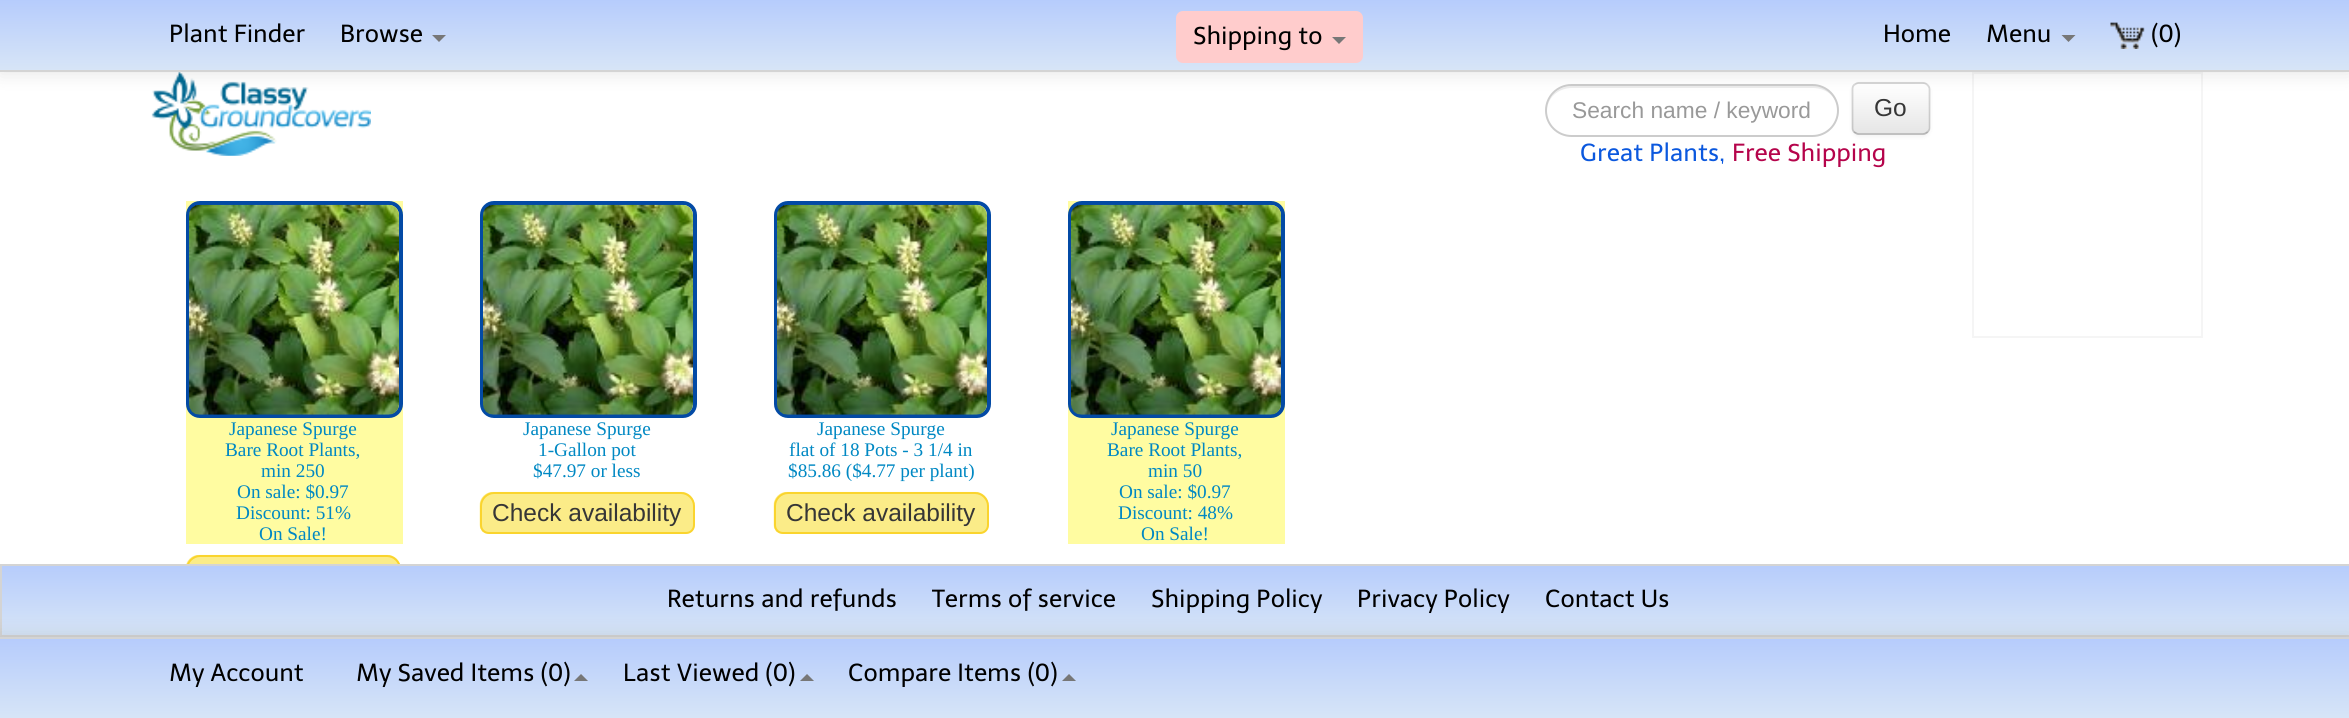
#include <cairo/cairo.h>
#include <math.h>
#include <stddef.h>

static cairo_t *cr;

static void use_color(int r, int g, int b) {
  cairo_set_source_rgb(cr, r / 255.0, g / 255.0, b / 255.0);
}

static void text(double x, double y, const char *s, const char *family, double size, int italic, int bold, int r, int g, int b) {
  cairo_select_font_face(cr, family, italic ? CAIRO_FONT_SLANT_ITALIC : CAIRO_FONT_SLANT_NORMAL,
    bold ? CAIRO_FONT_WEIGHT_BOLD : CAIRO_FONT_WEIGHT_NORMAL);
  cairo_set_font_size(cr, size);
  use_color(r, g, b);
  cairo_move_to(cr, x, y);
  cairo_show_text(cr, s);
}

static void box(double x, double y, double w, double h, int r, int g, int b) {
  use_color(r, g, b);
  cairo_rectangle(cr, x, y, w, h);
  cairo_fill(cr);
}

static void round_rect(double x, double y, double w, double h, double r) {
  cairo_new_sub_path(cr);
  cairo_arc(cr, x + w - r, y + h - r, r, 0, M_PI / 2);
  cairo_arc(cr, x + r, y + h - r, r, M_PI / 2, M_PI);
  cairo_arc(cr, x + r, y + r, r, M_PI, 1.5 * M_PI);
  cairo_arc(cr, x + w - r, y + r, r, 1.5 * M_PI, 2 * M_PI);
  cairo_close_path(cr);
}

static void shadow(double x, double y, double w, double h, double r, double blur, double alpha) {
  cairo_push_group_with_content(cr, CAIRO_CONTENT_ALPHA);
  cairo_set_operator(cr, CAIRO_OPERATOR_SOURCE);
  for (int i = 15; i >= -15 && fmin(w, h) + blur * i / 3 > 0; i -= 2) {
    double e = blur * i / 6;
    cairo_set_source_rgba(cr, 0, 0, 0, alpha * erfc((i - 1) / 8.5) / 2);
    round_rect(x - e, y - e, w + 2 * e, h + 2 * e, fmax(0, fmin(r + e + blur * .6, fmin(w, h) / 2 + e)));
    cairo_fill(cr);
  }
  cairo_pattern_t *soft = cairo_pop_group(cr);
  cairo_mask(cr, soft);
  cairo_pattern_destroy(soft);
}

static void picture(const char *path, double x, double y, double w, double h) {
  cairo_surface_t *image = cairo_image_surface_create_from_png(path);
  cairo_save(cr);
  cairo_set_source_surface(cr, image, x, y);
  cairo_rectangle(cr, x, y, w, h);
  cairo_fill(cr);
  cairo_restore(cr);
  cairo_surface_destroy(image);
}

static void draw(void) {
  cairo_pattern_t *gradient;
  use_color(255, 255, 255);
  cairo_paint(cr);
  picture("img_02.png", 151, 72, 220, 84);
  use_color(236, 236, 236);
  cairo_new_path(cr);
  cairo_move_to(cr, 1572, 88);
  cairo_line_to(cr, 1813, 88);
  cairo_curve_to(cr, 1827, 88, 1838, 98, 1838, 111);
  cairo_line_to(cr, 1838, 110);
  cairo_curve_to(cr, 1838, 97, 1827, 86, 1814, 86);
  cairo_line_to(cr, 1572, 86);
  cairo_curve_to(cr, 1558, 86, 1547, 97, 1547, 110);
  cairo_line_to(cr, 1547, 111);
  cairo_curve_to(cr, 1547, 98, 1558, 88, 1572, 88);
  cairo_close_path(cr);
  cairo_fill(cr);
  round_rect(1546, 85, 292, 51, 25.5);
  use_color(204, 204, 204);
  cairo_stroke(cr);
  use_color(0, 0, 0);
  shadow(1852, 84, 78, 53, 7, 2, 0.05);
  use_color(245, 245, 245);
  round_rect(1852, 82, 78, 53, 7);
  cairo_fill(cr);
  cairo_save(cr);
  round_rect(1852, 82, 78, 53, 7);
  cairo_clip(cr);
  gradient = cairo_pattern_create_linear(1891, 84, 1891, 133);
  cairo_pattern_add_color_stop_rgba(gradient, 0, 1, 1, 1, 1);
  cairo_pattern_add_color_stop_rgba(gradient, 1, 0.902, 0.902, 0.902, 1);
  cairo_set_source(cr, gradient);
  cairo_pattern_destroy(gradient);
  cairo_rectangle(cr, 1852, 84, 78, 49);
  cairo_fill(cr);
  cairo_restore(cr);
  cairo_set_source_rgba(cr, 1, 1, 1, 0.2);
  cairo_new_path(cr);
  cairo_move_to(cr, 1858, 86);
  cairo_line_to(cr, 1923, 86);
  cairo_curve_to(cr, 1929, 86, 1928, 93, 1928, 98);
  cairo_line_to(cr, 1928, 131);
  cairo_curve_to(cr, 1930, 129, 1929, 124, 1929, 122);
  cairo_line_to(cr, 1929, 108);
  cairo_curve_to(cr, 1929, 79, 1933, 84, 1902, 84);
  cairo_line_to(cr, 1869, 84);
  cairo_curve_to(cr, 1861, 84, 1853, 81, 1853, 91);
  cairo_curve_to(cr, 1853, 88, 1856, 86, 1858, 86);
  cairo_close_path(cr);
  cairo_fill(cr);
  cairo_new_path(cr);
  cairo_move_to(cr, 1927.5, 132);
  cairo_curve_to(cr, 1926.5, 133, 1925, 134, 1923, 134);
  cairo_line_to(cr, 1858.5, 134);
  cairo_curve_to(cr, 1857, 134, 1855.5, 133, 1854, 132);
  cairo_set_source_rgba(cr, 0, 0, 0, 0.25);
  cairo_set_line_width(cr, 1.8);
  cairo_stroke(cr);
  cairo_new_path(cr);
  cairo_move_to(cr, 1854, 132);
  cairo_curve_to(cr, 1853, 131, 1852.5, 129.5, 1852.5, 128);
  cairo_line_to(cr, 1852.5, 89);
  cairo_curve_to(cr, 1852.5, 87.5, 1853, 86, 1854, 85);
  cairo_curve_to(cr, 1855.5, 84, 1857, 83, 1858.5, 83);
  cairo_line_to(cr, 1923, 83);
  cairo_curve_to(cr, 1925, 83, 1926.5, 84, 1927.5, 85);
  cairo_curve_to(cr, 1928.5, 86, 1929.5, 87.5, 1929.5, 89);
  cairo_line_to(cr, 1929.5, 128);
  cairo_curve_to(cr, 1929.5, 129.5, 1928.5, 131, 1927.5, 132);
  cairo_set_source_rgba(cr, 0, 0, 0, 0.15);
  cairo_stroke(cr);
  cairo_rectangle(cr, 1973, 73, 229, 264);
  use_color(245, 245, 245);
  cairo_set_line_width(cr, 2);
  cairo_stroke(cr);
  use_color(0, 0, 0);
  shadow(0, 2, 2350, 72, 0, 9, 0.1);
  gradient = cairo_pattern_create_linear(1175, 0, 1175, 70);
  cairo_pattern_add_color_stop_rgba(gradient, 0, 0.714, 0.8, 0.988, 1);
  cairo_pattern_add_color_stop_rgba(gradient, 1, 0.843, 0.898, 0.969, 1);
  cairo_set_source(cr, gradient);
  cairo_pattern_destroy(gradient);
  cairo_rectangle(cr, 0, 0, 2349, 70);
  cairo_fill(cr);
  box(0, 70, 2349, 2, 212, 212, 212);
  use_color(119, 119, 119);
  cairo_new_path(cr);
  cairo_move_to(cr, 432, 35);
  cairo_line_to(cr, 446, 35);
  cairo_line_to(cr, 439, 42);
  cairo_close_path(cr);
  cairo_fill(cr);
  use_color(255, 204, 204);
  round_rect(1176, 11, 187, 52, 7);
  cairo_fill(cr);
  use_color(119, 119, 119);
  cairo_new_path(cr);
  cairo_move_to(cr, 1332, 37);
  cairo_line_to(cr, 1346, 37);
  cairo_line_to(cr, 1339, 44);
  cairo_close_path(cr);
  cairo_fill(cr);
  cairo_new_path(cr);
  cairo_move_to(cr, 2061.5, 35);
  cairo_line_to(cr, 2075.5, 35);
  cairo_line_to(cr, 2068.5, 42);
  cairo_close_path(cr);
  cairo_fill(cr);
  picture("img_01.png", 2110, 22, 35, 27);
  box(186, 201, 217, 343, 255, 252, 161);
  round_rect(188, 203, 213, 213, 12);
  use_color(3, 74, 165);
  cairo_set_line_width(cr, 4);
  cairo_stroke(cr);
  picture("img_03.png", 189, 204, 210, 211);
  picture("img_04.png", 186, 554, 214, 10);
  cairo_new_path(cr);
  cairo_move_to(cr, 200, 556);
  cairo_line_to(cr, 387, 556);
  cairo_curve_to(cr, 394, 556, 400, 562, 400, 569);
  cairo_line_to(cr, 400, 588);
  cairo_curve_to(cr, 400, 592.5, 396.5, 596, 392, 596);
  cairo_line_to(cr, 195, 596);
  cairo_curve_to(cr, 190.5, 596, 187, 592.5, 187, 588);
  cairo_line_to(cr, 187, 569);
  cairo_curve_to(cr, 187, 562, 193, 556, 200, 556);
  cairo_close_path(cr);
  use_color(250, 212, 46);
  cairo_set_line_width(cr, 2);
  cairo_stroke(cr);
  round_rect(482, 203, 213, 213, 12);
  use_color(3, 74, 165);
  cairo_set_line_width(cr, 4);
  cairo_stroke(cr);
  picture("img_05.png", 483, 204, 210, 211);
  picture("img_06.png", 479, 491, 216, 43);
  cairo_new_path(cr);
  cairo_move_to(cr, 494, 493);
  cairo_line_to(cr, 681, 493);
  cairo_curve_to(cr, 688, 493, 694, 499, 694, 506);
  cairo_line_to(cr, 694, 525);
  cairo_curve_to(cr, 694, 529.5, 690.5, 533, 686, 533);
  cairo_line_to(cr, 489, 533);
  cairo_curve_to(cr, 484.5, 533, 481, 529.5, 481, 525);
  cairo_line_to(cr, 481, 506);
  cairo_curve_to(cr, 481, 499, 487, 493, 494, 493);
  cairo_close_path(cr);
  use_color(250, 212, 46);
  cairo_set_line_width(cr, 2);
  cairo_stroke(cr);
  round_rect(776, 203, 213, 213, 12);
  use_color(3, 74, 165);
  cairo_set_line_width(cr, 4);
  cairo_stroke(cr);
  picture("img_07.png", 777, 204, 210, 211);
  picture("img_06.png", 773, 491, 216, 43);
  cairo_new_path(cr);
  cairo_move_to(cr, 788, 493);
  cairo_line_to(cr, 975, 493);
  cairo_curve_to(cr, 982, 493, 988, 499, 988, 506);
  cairo_line_to(cr, 988, 525);
  cairo_curve_to(cr, 988, 529.5, 984.5, 533, 980, 533);
  cairo_line_to(cr, 783, 533);
  cairo_curve_to(cr, 778.5, 533, 775, 529.5, 775, 525);
  cairo_line_to(cr, 775, 506);
  cairo_curve_to(cr, 775, 499, 781, 493, 788, 493);
  cairo_close_path(cr);
  use_color(250, 212, 46);
  cairo_set_line_width(cr, 2);
  cairo_stroke(cr);
  box(1068, 201, 217, 343, 255, 252, 161);
  round_rect(1070, 203, 213, 213, 12);
  use_color(3, 74, 165);
  cairo_set_line_width(cr, 4);
  cairo_stroke(cr);
  picture("img_08.png", 1071, 204, 210, 211);
  gradient = cairo_pattern_create_linear(1177, 565, 1177, 635);
  cairo_pattern_add_color_stop_rgba(gradient, 0, 0.714, 0.8, 0.988, 1);
  cairo_pattern_add_color_stop_rgba(gradient, 1, 0.843, 0.898, 0.969, 1);
  cairo_set_source(cr, gradient);
  cairo_pattern_destroy(gradient);
  cairo_rectangle(cr, 2, 566, 2347, 69);
  cairo_fill(cr);
  cairo_rectangle(cr, 1, 565, 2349, 71);
  use_color(212, 212, 212);
  cairo_set_line_width(cr, 2);
  cairo_stroke(cr);
  use_color(0, 0, 0);
  shadow(0, 635, 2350, 83, 0, 9, 0.1);
  gradient = cairo_pattern_create_linear(1175, 639, 1175, 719);
  cairo_pattern_add_color_stop_rgba(gradient, 0, 0.714, 0.8, 0.988, 1);
  cairo_pattern_add_color_stop_rgba(gradient, 1, 0.843, 0.898, 0.969, 1);
  cairo_set_source(cr, gradient);
  cairo_pattern_destroy(gradient);
  cairo_rectangle(cr, 0, 639, 2349, 79);
  cairo_fill(cr);
  box(0, 637, 2349, 2, 212, 212, 212);
  use_color(119, 119, 119);
  cairo_new_path(cr);
  cairo_move_to(cr, 588, 681);
  cairo_line_to(cr, 574, 681);
  cairo_line_to(cr, 581, 674);
  cairo_close_path(cr);
  cairo_fill(cr);
  cairo_new_path(cr);
  cairo_move_to(cr, 814, 681);
  cairo_line_to(cr, 800, 681);
  cairo_line_to(cr, 807, 674);
  cairo_close_path(cr);
  cairo_fill(cr);
  cairo_new_path(cr);
  cairo_move_to(cr, 1076, 681);
  cairo_line_to(cr, 1062, 681);
  cairo_line_to(cr, 1069, 674);
  cairo_close_path(cr);
  cairo_fill(cr);
  text(169, 42, "Plant Finder", "Telex", 24.5, 0, 0, 0, 0, 0);
  text(340, 42, "Browse", "Telex", 24.5, 0, 0, 0, 0, 0);
  text(1193, 44, "Shipping to", "Telex", 24.5, 0, 0, 0, 0, 0);
  text(1883, 42, "Home", "Telex", 24.5, 0, 0, 0, 0, 0);
  text(1986, 42, "Menu", "Telex", 24.5, 0, 0, 0, 0, 0);
  text(2151, 42, "(0)", "Telex", 24.5, 0, 0, 0, 0, 0);
  text(1572, 118, "Search name / keyword", "Liberation Sans", 22.75, 0, 0, 153, 153, 153);
  text(1874, 116, "Go", "Liberation Sans", 24.5, 0, 0, 54, 54, 54);
  text(1580, 161, "Great Plants,", "Telex", 24.5, 0, 0, 11, 88, 222);
  text(1732, 161, "Free Shipping", "Telex", 24.5, 0, 0, 181, 4, 75);
  text(229, 435, "Japanese Spurge", "Liberation Serif", 19.25, 0, 0, 0, 136, 195);
  text(225, 456, "Bare Root Plants,", "Liberation Serif", 19.25, 0, 0, 0, 136, 195);
  text(261, 477, "min 250", "Liberation Serif", 19.25, 0, 0, 0, 136, 195);
  text(237, 498, "On sale: $0.97", "Liberation Serif", 19.25, 0, 0, 0, 136, 195);
  text(236, 519, "Discount: 51%", "Liberation Serif", 19.25, 0, 0, 0, 136, 195);
  text(259, 540, "On Sale!", "Liberation Serif", 19.25, 0, 0, 0, 136, 195);
  text(523, 435, "Japanese Spurge", "Liberation Serif", 19.25, 0, 0, 0, 136, 195);
  text(538, 456, "1-Gallon pot", "Liberation Serif", 19.25, 0, 0, 0, 136, 195);
  text(533, 477, "$47.97 or less", "Liberation Serif", 19.25, 0, 0, 0, 136, 195);
  text(492, 521, "Check availability", "Liberation Sans", 24.5, 0, 0, 54, 54, 54);
  text(817, 435, "Japanese Spurge", "Liberation Serif", 19.25, 0, 0, 0, 136, 195);
  text(789, 456, "flat of 18 Pots - 3 1/4 in", "Liberation Serif", 19.25, 0, 0, 0, 136, 195);
  text(788, 477, "$85.86 ($4.77 per plant)", "Liberation Serif", 19.25, 0, 0, 0, 136, 195);
  text(786, 521, "Check availability", "Liberation Sans", 24.5, 0, 0, 54, 54, 54);
  text(1111, 435, "Japanese Spurge", "Liberation Serif", 19.25, 0, 0, 0, 136, 195);
  text(1107, 456, "Bare Root Plants,", "Liberation Serif", 19.25, 0, 0, 0, 136, 195);
  text(1148, 477, "min 50", "Liberation Serif", 19.25, 0, 0, 0, 136, 195);
  text(1119, 498, "On sale: $0.97", "Liberation Serif", 19.25, 0, 0, 0, 136, 195);
  text(1118, 519, "Discount: 48%", "Liberation Serif", 19.25, 0, 0, 0, 136, 195);
  text(1141, 540, "On Sale!", "Liberation Serif", 19.25, 0, 0, 0, 136, 195);
  text(667, 607, "Returns and refunds", "Telex", 24.5, 0, 0, 0, 0, 0);
  text(932, 607, "Terms of service", "Telex", 24.5, 0, 0, 0, 0, 0);
  text(1151, 607, "Shipping Policy", "Telex", 24.5, 0, 0, 0, 0, 0);
  text(1357, 607, "Privacy Policy", "Telex", 24.5, 0, 0, 0, 0, 0);
  text(1545, 607, "Contact Us", "Telex", 24.5, 0, 0, 0, 0, 0);
  text(169, 681, "My Account", "Telex", 24.5, 0, 0, 0, 0, 0);
  text(356, 681, "My Saved Items (0)", "Telex", 24.5, 0, 0, 0, 0, 0);
  text(623, 681, "Last Viewed (0)", "Telex", 24.5, 0, 0, 0, 0, 0);
  text(848, 681, "Compare Items (0)", "Telex", 24.5, 0, 0, 0, 0, 0);
}

int main(void) {
  cairo_surface_t *surface = cairo_image_surface_create(CAIRO_FORMAT_RGB24, 2349, 718);
  cr = cairo_create(surface);
  cairo_font_options_t *options = cairo_font_options_create();
  cairo_font_options_set_hint_metrics(options, CAIRO_HINT_METRICS_OFF);
  cairo_font_options_set_hint_style(options, CAIRO_HINT_STYLE_NONE);
  cairo_set_font_options(cr, options);
  cairo_set_miter_limit(cr, 4);
  draw();
  cairo_surface_write_to_png(surface, "out.png");
  cairo_font_options_destroy(options);
  cairo_destroy(cr);
  cairo_surface_destroy(surface);
  return 0;
}
